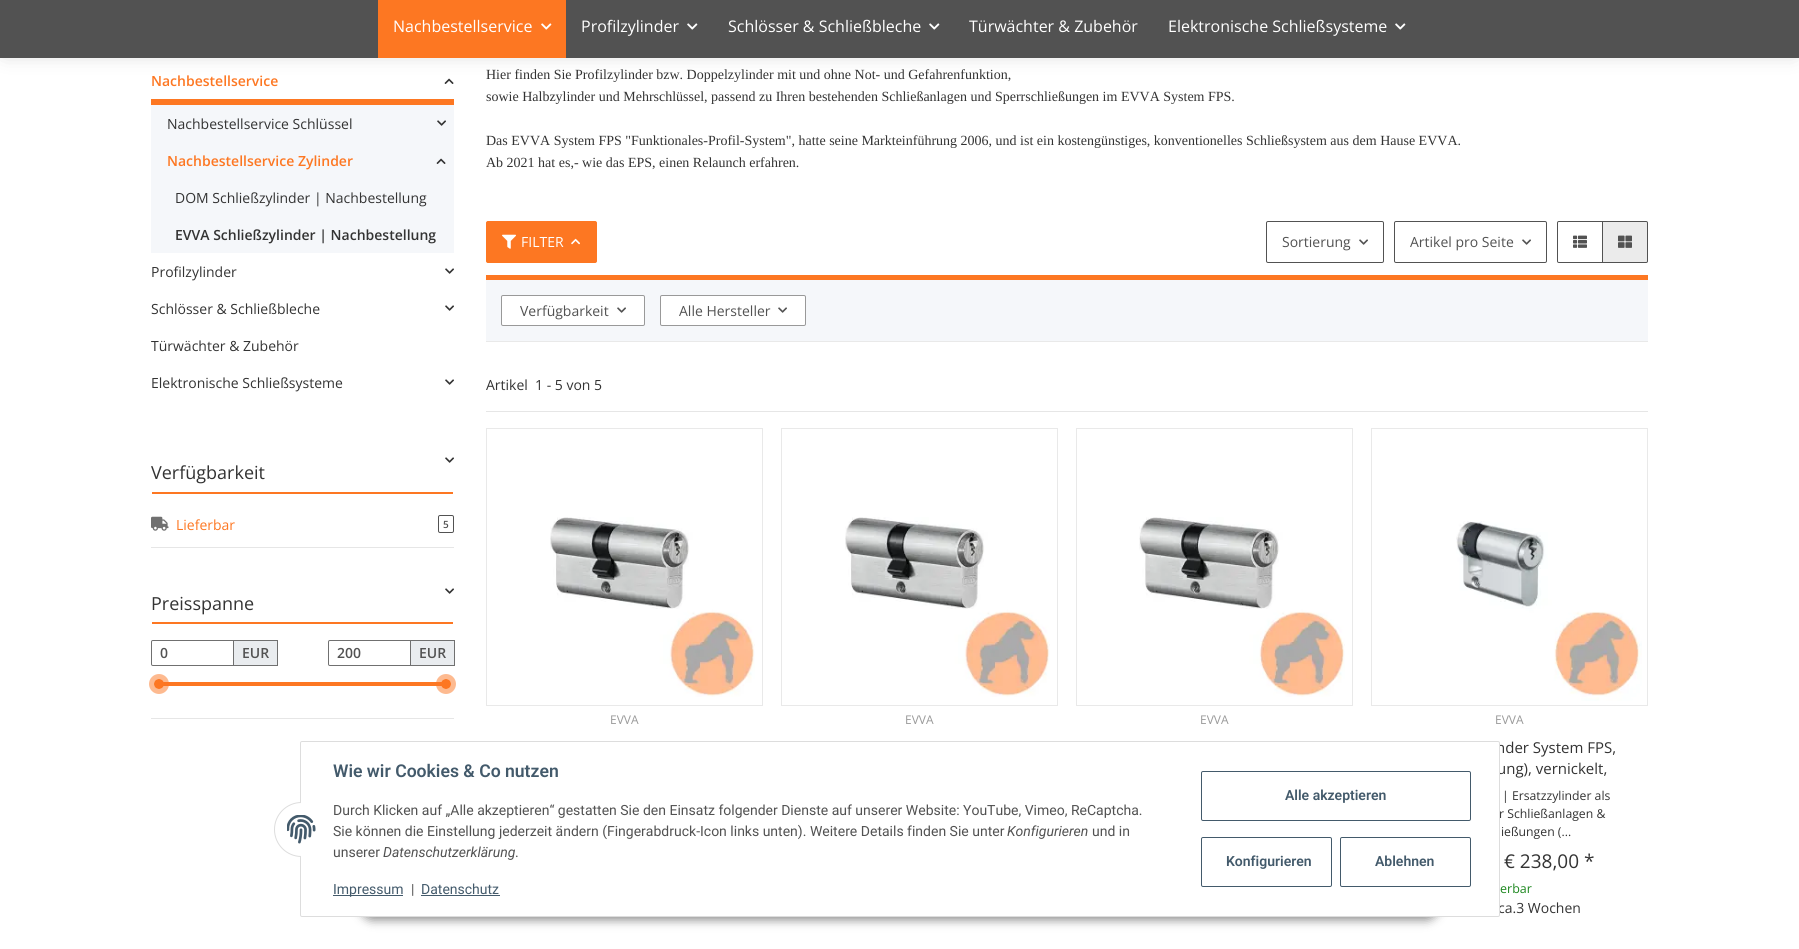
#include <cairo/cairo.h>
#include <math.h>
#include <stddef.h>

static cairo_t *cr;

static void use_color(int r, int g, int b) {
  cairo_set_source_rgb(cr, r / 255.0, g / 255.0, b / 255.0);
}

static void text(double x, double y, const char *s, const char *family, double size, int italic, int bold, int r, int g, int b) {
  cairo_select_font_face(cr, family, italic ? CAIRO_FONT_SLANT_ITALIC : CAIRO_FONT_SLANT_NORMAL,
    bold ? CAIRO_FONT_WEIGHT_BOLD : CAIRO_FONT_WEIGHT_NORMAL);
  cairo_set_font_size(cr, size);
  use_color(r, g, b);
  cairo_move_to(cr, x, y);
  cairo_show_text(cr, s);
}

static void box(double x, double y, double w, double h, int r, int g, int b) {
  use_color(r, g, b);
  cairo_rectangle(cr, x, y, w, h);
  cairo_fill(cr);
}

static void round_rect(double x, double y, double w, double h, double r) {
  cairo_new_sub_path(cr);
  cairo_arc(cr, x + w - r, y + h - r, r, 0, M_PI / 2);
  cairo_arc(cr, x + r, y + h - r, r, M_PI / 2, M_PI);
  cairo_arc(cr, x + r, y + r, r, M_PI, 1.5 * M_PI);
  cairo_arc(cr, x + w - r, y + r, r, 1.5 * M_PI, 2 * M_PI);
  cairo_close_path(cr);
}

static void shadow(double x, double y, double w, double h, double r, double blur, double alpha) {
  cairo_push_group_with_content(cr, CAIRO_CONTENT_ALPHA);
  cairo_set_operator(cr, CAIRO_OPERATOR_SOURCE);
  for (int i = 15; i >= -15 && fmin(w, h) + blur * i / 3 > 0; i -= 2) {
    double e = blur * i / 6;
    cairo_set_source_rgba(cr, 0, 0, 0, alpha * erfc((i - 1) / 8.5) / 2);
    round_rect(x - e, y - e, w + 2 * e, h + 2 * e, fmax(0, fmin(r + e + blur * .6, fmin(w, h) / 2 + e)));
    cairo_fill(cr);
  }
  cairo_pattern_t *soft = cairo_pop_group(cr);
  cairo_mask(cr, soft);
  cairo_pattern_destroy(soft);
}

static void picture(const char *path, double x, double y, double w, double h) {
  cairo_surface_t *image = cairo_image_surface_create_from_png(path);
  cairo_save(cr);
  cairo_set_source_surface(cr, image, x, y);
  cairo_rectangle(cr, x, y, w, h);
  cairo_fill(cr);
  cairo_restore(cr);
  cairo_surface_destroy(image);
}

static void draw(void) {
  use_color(255, 255, 255);
  cairo_paint(cr);
  picture("img_03.png", 444, 78, 10, 6);
  use_color(0, 0, 0);
  shadow(5, 5, 1789, 48, 0, 10, 0.2);
  box(0, 0, 1799, 58, 82, 82, 82);
  box(378, 0, 188, 58, 253, 119, 34);
  picture("img_01.png", 541, 23, 11, 7);
  picture("img_02.png", 687, 23, 11, 7);
  picture("img_02.png", 929, 23, 11, 7);
  picture("img_02.png", 1395, 23, 11, 7);
  box(151, 99, 303, 6, 253, 119, 34);
  box(151, 105, 303, 148, 245, 247, 250);
  picture("img_04.png", 437, 120, 9, 6);
  picture("img_05.png", 436, 158, 10, 6);
  picture("img_06.png", 445, 268, 9, 6);
  picture("img_06.png", 445, 305, 9, 6);
  picture("img_06.png", 445, 379, 9, 6);
  box(152, 492, 301, 2, 253, 119, 34);
  picture("img_06.png", 445, 457, 9, 6);
  picture("img_07.png", 151, 516, 18, 15);
  round_rect(438.5, 515.5, 15, 17, 1.5);
  use_color(82, 82, 82);
  cairo_set_line_width(cr, 1);
  cairo_stroke(cr);
  box(151, 547, 303, 1, 230, 230, 230);
  box(152, 622, 301, 2, 253, 119, 34);
  picture("img_06.png", 445, 588, 9, 6);
  cairo_new_path(cr);
  cairo_move_to(cr, 153, 640.5);
  cairo_line_to(cr, 233.5, 640.5);
  cairo_line_to(cr, 233.5, 665.5);
  cairo_line_to(cr, 153, 665.5);
  cairo_curve_to(cr, 152, 665.5, 151.5, 665, 151.5, 664);
  cairo_line_to(cr, 151.5, 642);
  cairo_curve_to(cr, 151.5, 641, 152, 640.5, 153, 640.5);
  cairo_close_path(cr);
  use_color(112, 112, 112);
  cairo_stroke(cr);
  box(234, 641, 43, 24, 233, 236, 239);
  box(234, 640, 44, 1, 112, 112, 112);
  box(277, 640, 1, 26, 112, 112, 112);
  box(234, 665, 44, 1, 112, 112, 112);
  cairo_new_path(cr);
  cairo_move_to(cr, 330, 640.5);
  cairo_line_to(cr, 410.5, 640.5);
  cairo_line_to(cr, 410.5, 665.5);
  cairo_line_to(cr, 330, 665.5);
  cairo_curve_to(cr, 329, 665.5, 328.5, 665, 328.5, 664);
  cairo_line_to(cr, 328.5, 642);
  cairo_curve_to(cr, 328.5, 641, 329, 640.5, 330, 640.5);
  cairo_close_path(cr);
  cairo_stroke(cr);
  box(411, 641, 43, 24, 233, 236, 239);
  box(411, 640, 44, 1, 112, 112, 112);
  box(454, 640, 1, 26, 112, 112, 112);
  box(411, 665, 44, 1, 112, 112, 112);
  box(159, 682, 287, 4, 253, 119, 34);
  cairo_arc(cr, 159, 684, 7.5, 0, 2 * M_PI);
  cairo_set_source_rgba(cr, 0.992, 0.467, 0.133, 0.5);
  cairo_set_line_width(cr, 5);
  cairo_stroke(cr);
  use_color(253, 119, 34);
  cairo_arc(cr, 159, 684, 5, 0, 2 * M_PI);
  cairo_fill(cr);
  cairo_arc(cr, 446, 684, 7.5, 0, 2 * M_PI);
  cairo_set_source_rgba(cr, 0.992, 0.467, 0.133, 0.5);
  cairo_stroke(cr);
  use_color(253, 119, 34);
  cairo_arc(cr, 446, 684, 5, 0, 2 * M_PI);
  cairo_fill(cr);
  box(151, 718, 303, 1, 230, 230, 230);
  use_color(253, 119, 34);
  round_rect(486.5, 221.5, 110, 41, 1.5);
  cairo_fill_preserve(cr);
  cairo_set_line_width(cr, 1);
  cairo_stroke(cr);
  picture("img_08.png", 502, 234, 14, 15);
  picture("img_09.png", 571, 238, 9, 7);
  round_rect(1266.5, 221.5, 117, 41, 1.5);
  use_color(82, 82, 82);
  cairo_stroke(cr);
  picture("img_10.png", 1359, 239, 9, 6);
  round_rect(1394.5, 221.5, 152, 41, 1.5);
  cairo_stroke(cr);
  picture("img_10.png", 1522, 239, 9, 6);
  cairo_new_path(cr);
  cairo_move_to(cr, 1559, 221.5);
  cairo_line_to(cr, 1602.5, 221.5);
  cairo_line_to(cr, 1602.5, 262.5);
  cairo_line_to(cr, 1559, 262.5);
  cairo_curve_to(cr, 1558, 262.5, 1557.5, 262, 1557.5, 261);
  cairo_line_to(cr, 1557.5, 223);
  cairo_curve_to(cr, 1557.5, 222, 1558, 221.5, 1559, 221.5);
  cairo_close_path(cr);
  cairo_stroke(cr);
  picture("img_11.png", 1573, 235, 14, 13);
  use_color(235, 235, 235);
  cairo_new_path(cr);
  cairo_move_to(cr, 1602.5, 221.5);
  cairo_line_to(cr, 1646, 221.5);
  cairo_curve_to(cr, 1647, 221.5, 1647.5, 222, 1647.5, 223);
  cairo_line_to(cr, 1647.5, 261);
  cairo_curve_to(cr, 1647.5, 262, 1647, 262.5, 1646, 262.5);
  cairo_line_to(cr, 1602.5, 262.5);
  cairo_close_path(cr);
  cairo_fill_preserve(cr);
  use_color(82, 82, 82);
  cairo_stroke(cr);
  picture("img_12.png", 1618, 235, 14, 13);
  box(486, 280, 1162, 61, 245, 247, 250);
  box(486, 275, 1162, 5, 253, 119, 34);
  box(486, 341, 1162, 1, 233, 233, 233);
  use_color(255, 255, 255);
  round_rect(501.5, 295.5, 143, 30, 1.5);
  cairo_fill_preserve(cr);
  use_color(153, 153, 153);
  cairo_stroke(cr);
  picture("img_10.png", 617, 307, 9, 6);
  use_color(255, 255, 255);
  round_rect(660.5, 295.5, 145, 30, 1.5);
  cairo_fill_preserve(cr);
  use_color(153, 153, 153);
  cairo_stroke(cr);
  picture("img_10.png", 778, 307, 9, 6);
  box(486, 411, 1162, 1, 230, 230, 230);
  cairo_rectangle(cr, 486.5, 428.5, 276, 277);
  use_color(233, 233, 233);
  cairo_stroke(cr);
  picture("img_13.png", 550, 517, 205, 180);
  cairo_rectangle(cr, 781.5, 428.5, 276, 277);
  cairo_stroke(cr);
  picture("img_13.png", 845, 517, 205, 180);
  cairo_rectangle(cr, 1076.5, 428.5, 276, 277);
  cairo_stroke(cr);
  picture("img_14.png", 1139, 517, 206, 180);
  cairo_rectangle(cr, 1371.5, 428.5, 276, 277);
  cairo_stroke(cr);
  picture("img_15.png", 1456, 521, 186, 180);
  use_color(0, 0, 0);
  shadow(360, 888, 1079, 32, 16, 5, 0.45);
  text(393, 32, "Nachbestellservice", "Open Sans", 16, 0, 0, 255, 255, 255);
  text(581, 32, "Profilzylinder", "Open Sans", 16, 0, 0, 255, 255, 255);
  text(728, 32, "Schlösser & Schließbleche", "Open Sans", 16, 0, 0, 255, 255, 255);
  text(969, 32, "Türwächter & Zubehör", "Open Sans", 16, 0, 0, 255, 255, 255);
  text(1168, 32, "Elektronische Schließsysteme", "Open Sans", 16, 0, 0, 255, 255, 255);
  text(151, 86, "Nachbestellservice", "Open Sans SemiBold", 14, 0, 0, 253, 119, 34);
  text(167, 129, "Nachbestellservice Schlüssel", "Open Sans", 14, 0, 0, 51, 51, 51);
  text(167, 166, "Nachbestellservice Zylinder", "Open Sans SemiBold", 14, 0, 0, 253, 119, 34);
  text(175, 203, "DOM Schließzylinder | Nachbestellung", "Open Sans", 14, 0, 0, 51, 51, 51);
  text(175, 240, "EVVA Schließzylinder | Nachbestellung", "Open Sans SemiBold", 14, 0, 0, 51, 51, 51);
  text(151, 277, "Profilzylinder", "Open Sans", 14, 0, 0, 51, 51, 51);
  text(151, 314, "Schlösser & Schließbleche", "Open Sans", 14, 0, 0, 51, 51, 51);
  text(151, 351, "Türwächter & Zubehör", "Open Sans", 14, 0, 0, 51, 51, 51);
  text(151, 388, "Elektronische Schließsysteme", "Open Sans", 14, 0, 0, 51, 51, 51);
  text(151, 479, "Verfügbarkeit", "Open Sans", 18, 0, 0, 51, 51, 51);
  text(176, 530, "Lieferbar", "Open Sans", 14, 0, 0, 253, 119, 34);
  text(443, 528, "5", "Open Sans SemiBold", 10, 0, 0, 82, 82, 82);
  text(151, 610, "Preisspanne", "Open Sans", 18, 0, 0, 51, 51, 51);
  text(160, 658, "0", "Open Sans SemiBold", 14, 0, 0, 82, 82, 82);
  text(242, 658, "EUR", "Open Sans SemiBold", 14, 0, 0, 82, 82, 82);
  text(337, 658, "200", "Open Sans SemiBold", 14, 0, 0, 82, 82, 82);
  text(419, 658, "EUR", "Open Sans SemiBold", 14, 0, 0, 82, 82, 82);
  text(486, 79, "Hier finden Sie Profilzylinder bzw. Doppelzylinder mit und ohne Not- und Gefahrenfunktion,", "Liberation Serif", 14, 0, 0, 51, 51, 51);
  text(486, 101, "sowie Halbzylinder und Mehrschlüssel, passend zu Ihren bestehenden Schließanlagen und Sperrschließungen im EVVA System FPS.", "Liberation Serif", 14, 0, 0, 51, 51, 51);
  text(486, 145, "Das EVVA System FPS \"Funktionales-Profil-System\", hatte seine Markteinführung 2006, und ist ein kostengünstiges, konventionelles Schließsystem aus dem Hause EVVA.", "Liberation Serif", 14, 0, 0, 51, 51, 51);
  text(486, 167, "Ab 2021 hat es,- wie das EPS, einen Relaunch erfahren.", "Liberation Serif", 14, 0, 0, 51, 51, 51);
  text(521, 247, "FILTER", "Open Sans", 14, 0, 0, 255, 255, 255);
  text(1282, 247, "Sortierung", "Open Sans", 14, 0, 0, 82, 82, 82);
  text(1410, 247, "Artikel pro Seite", "Open Sans", 14, 0, 0, 82, 82, 82);
  text(520, 316, "Verfügbarkeit", "Open Sans", 14, 0, 0, 82, 82, 82);
  text(679, 316, "Alle Hersteller", "Open Sans", 14, 0, 0, 82, 82, 82);
  text(486, 390, "Artikel", "Open Sans", 14, 0, 0, 51, 51, 51);
  text(535, 390, "1 - 5 von 5", "Open Sans", 14, 0, 0, 51, 51, 51);
  text(610, 724, "EVVA", "Open Sans", 12, 0, 0, 153, 153, 153);
  text(905, 724, "EVVA", "Open Sans", 12, 0, 0, 153, 153, 153);
  text(1200, 724, "EVVA", "Open Sans", 12, 0, 0, 153, 153, 153);
  text(1495, 724, "EVVA", "Open Sans", 12, 0, 0, 153, 153, 153);
  text(1496, 753, "nder System FPS,", "Open Sans", 15, 0, 0, 51, 51, 51);
  text(1497, 774, "ung), vernickelt,", "Open Sans", 15, 0, 0, 51, 51, 51);
  text(1502, 800, "| Ersatzzylinder als", "Open Sans", 12.25, 0, 0, 51, 51, 51);
  text(1499, 818, "r Schließanlagen &", "Open Sans", 12.25, 0, 0, 51, 51, 51);
  text(1501, 836, "ießungen (...", "Open Sans", 12.25, 0, 0, 51, 51, 51);
  text(1504, 868, "€ 238,00 *", "Open Sans", 19, 0, 0, 51, 51, 51);
  text(1500, 893, "erbar", "Open Sans", 12.5, 0, 0, 28, 135, 30);
  text(1498, 913, "ca.3 Wochen", "Open Sans", 14, 0, 0, 51, 51, 51);
  use_color(255, 255, 255);
  round_rect(300.5, 741.5, 1199, 175, 1.5);
  cairo_fill_preserve(cr);
  use_color(221, 221, 221);
  cairo_stroke(cr);
  use_color(255, 255, 255);
  cairo_arc(cr, 301.5, 829.5, 27, 0, 2 * M_PI);
  cairo_fill_preserve(cr);
  use_color(221, 221, 221);
  cairo_stroke(cr);
  box(301, 802, 28, 55, 255, 255, 255);
  picture("img_16.png", 287, 815, 29, 29);
  text(333, 777, "Wie wir Cookies & Co nutzen", "Roboto SemiBold", 17.6, 0, 0, 67, 90, 107);
  text(333, 815, "Durch Klicken auf „Alle akzeptieren“ gestatten Sie den Einsatz folgender Dienste auf unserer Website: YouTube, Vimeo, ReCaptcha.", "Roboto", 14, 0, 0, 82, 82, 82);
  text(333, 836, "Sie können die Einstellung jederzeit ändern (Fingerabdruck-Icon links unten). Weitere Details finden Sie unter", "Roboto", 14, 0, 0, 82, 82, 82);
  text(1007, 836, "Konfigurieren", "Roboto", 14, 1, 0, 82, 82, 82);
  text(1092, 836, "und in", "Roboto", 14, 0, 0, 82, 82, 82);
  text(333, 857, "unserer", "Roboto", 14, 0, 0, 82, 82, 82);
  text(383, 857, "Datenschutzerklärung", "Roboto", 14, 1, 0, 82, 82, 82);
  text(515, 857, ".", "Roboto", 14, 0, 0, 82, 82, 82);
  box(333, 895, 70, 1, 67, 90, 107);
  text(333, 894, "Impressum", "Roboto", 14, 0, 0, 67, 90, 107);
  text(411, 894, "|", "Roboto", 14, 0, 0, 82, 82, 82);
  text(421, 894, "Datenschutz", "Roboto", 14, 0, 0, 67, 90, 107);
  box(421, 895, 79, 1, 67, 90, 107);
  round_rect(1201.5, 771.5, 269, 49, 1.5);
  cairo_stroke(cr);
  text(1285, 800, "Alle akzeptieren", "Roboto SemiBold", 14, 0, 0, 67, 90, 107);
  round_rect(1201.5, 837.5, 130, 49, 1.5);
  cairo_stroke(cr);
  text(1226, 866, "Konfigurieren", "Roboto SemiBold", 14, 0, 0, 67, 90, 107);
  round_rect(1340.5, 837.5, 130, 49, 1.5);
  cairo_stroke(cr);
  text(1375, 866, "Ablehnen", "Roboto SemiBold", 14, 0, 0, 67, 90, 107);
}

int main(void) {
  cairo_surface_t *surface = cairo_image_surface_create(CAIRO_FORMAT_RGB24, 1799, 949);
  cr = cairo_create(surface);
  cairo_font_options_t *options = cairo_font_options_create();
  cairo_font_options_set_hint_metrics(options, CAIRO_HINT_METRICS_OFF);
  cairo_font_options_set_hint_style(options, CAIRO_HINT_STYLE_NONE);
  cairo_set_font_options(cr, options);
  cairo_set_miter_limit(cr, 4);
  draw();
  cairo_surface_write_to_png(surface, "out.png");
  cairo_font_options_destroy(options);
  cairo_destroy(cr);
  cairo_surface_destroy(surface);
  return 0;
}
